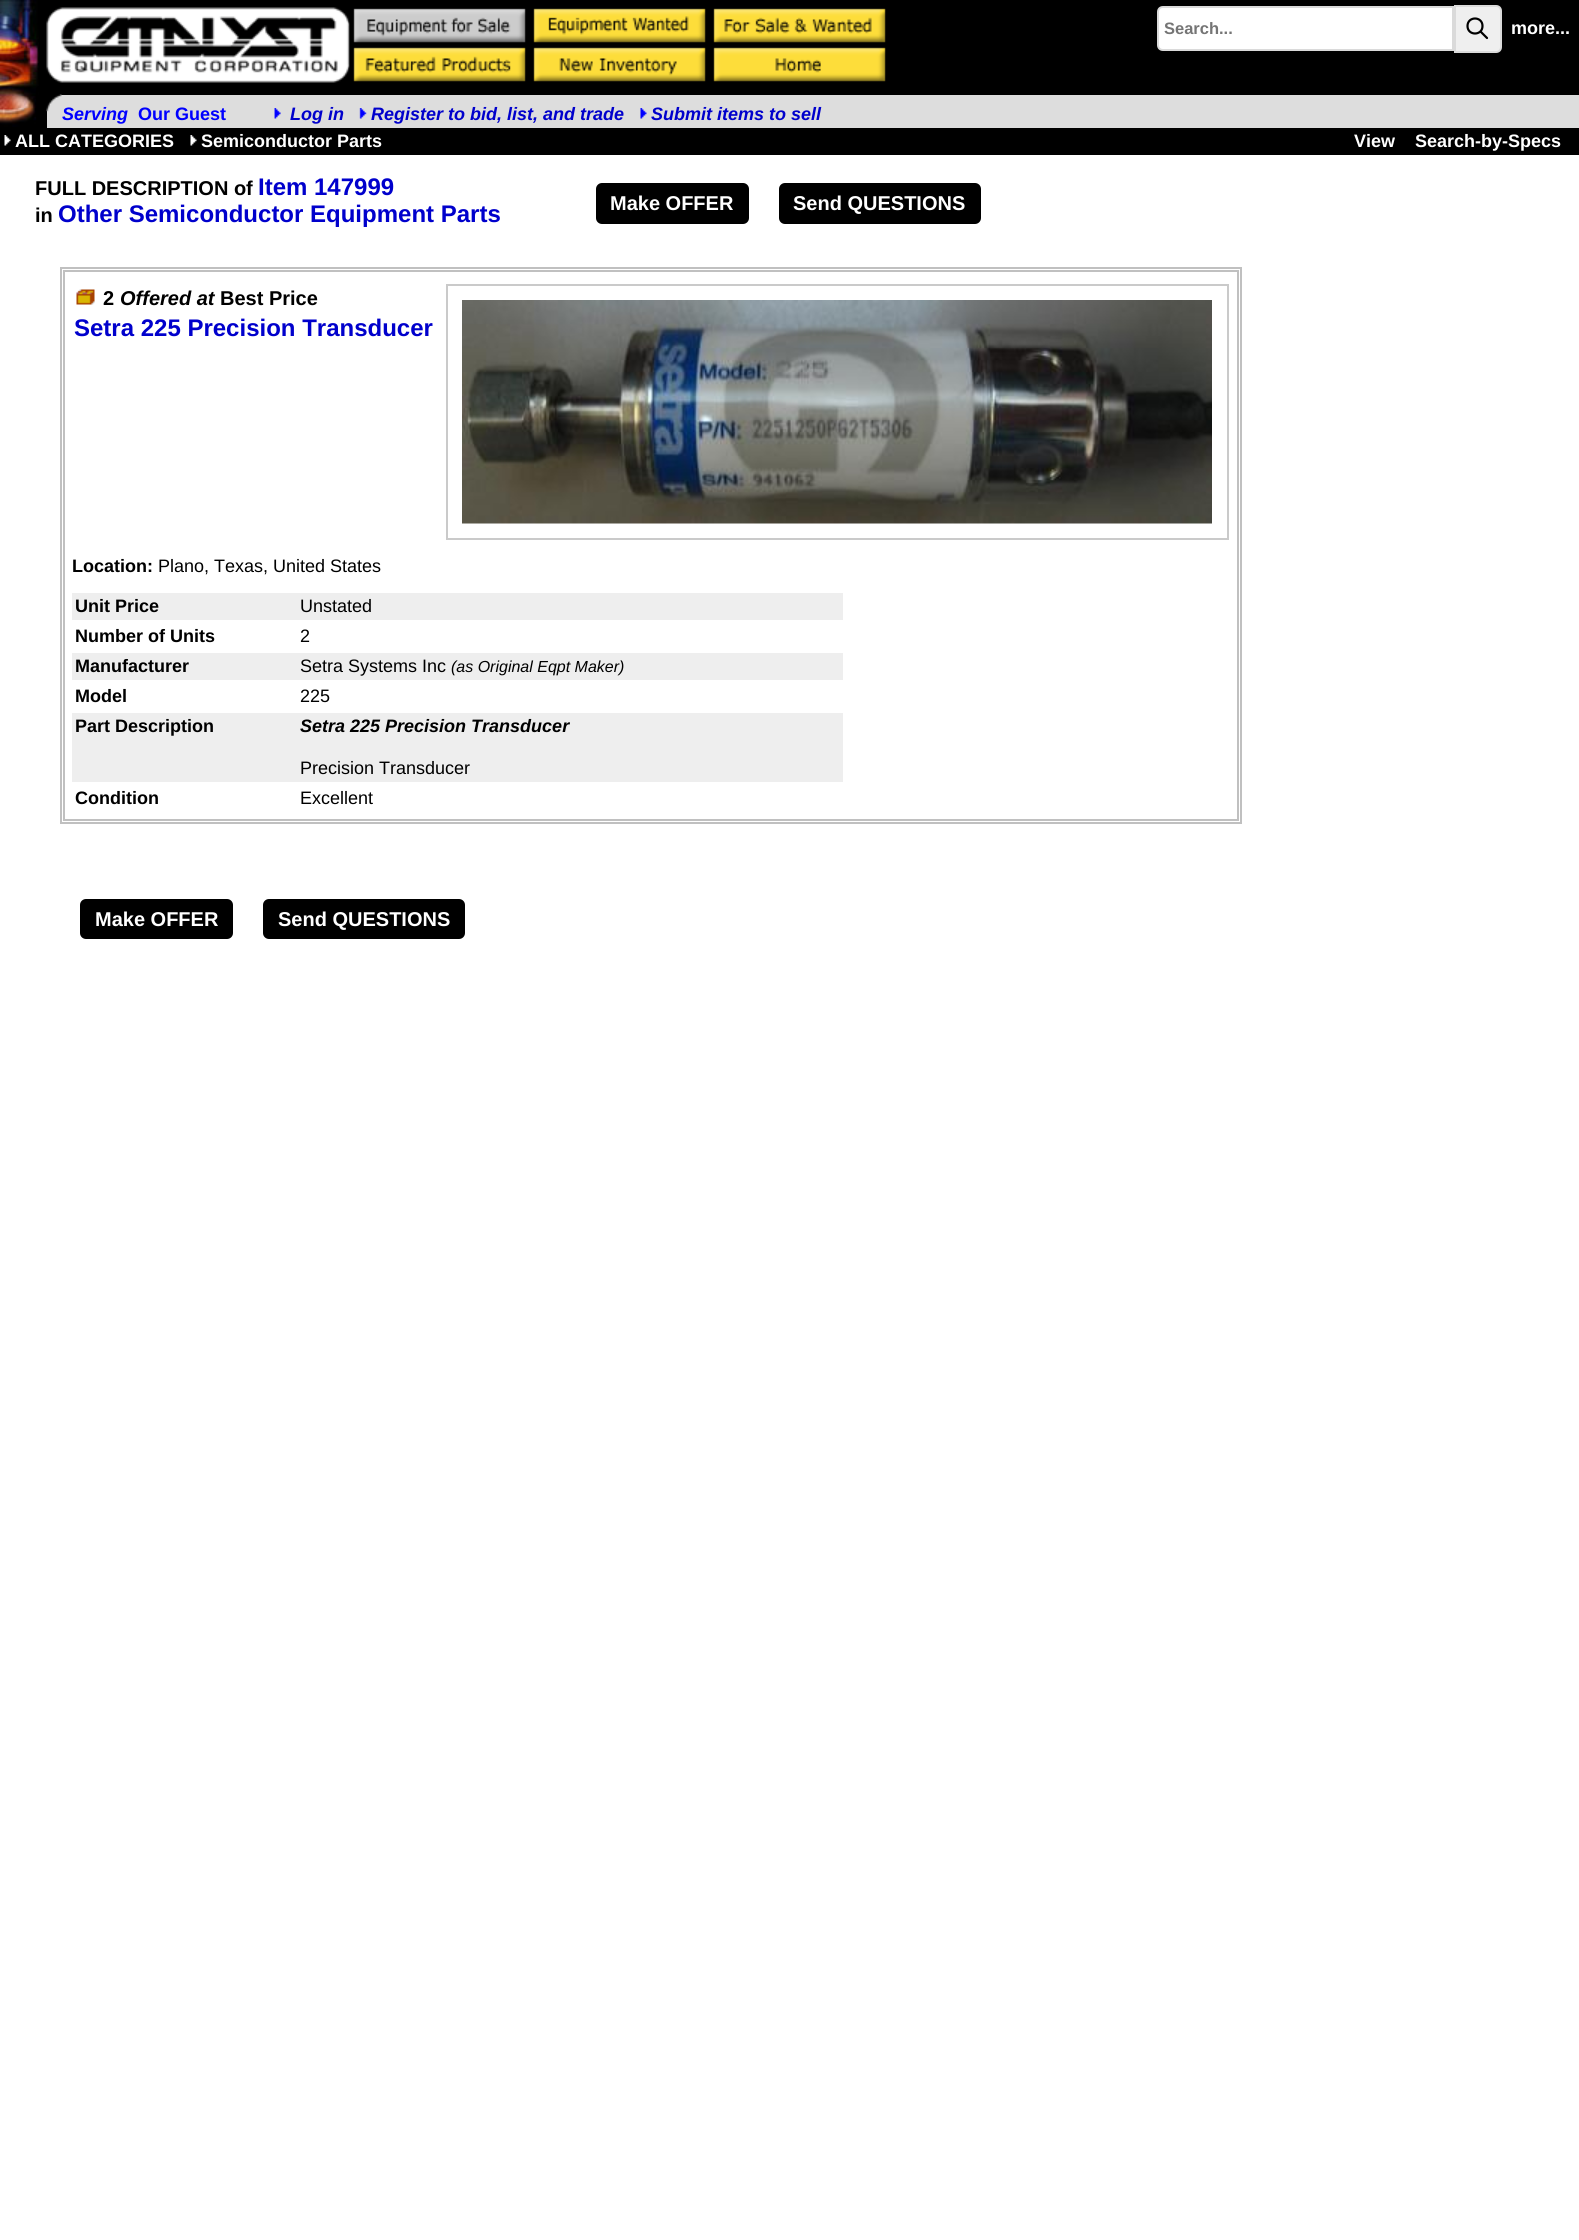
#include <cairo/cairo.h>
#include <math.h>
#include <stddef.h>

static cairo_t *cr;

static void use_color(int r, int g, int b) {
  cairo_set_source_rgb(cr, r / 255.0, g / 255.0, b / 255.0);
}

static void text(double x, double y, const char *s, const char *family, double size, int italic, int bold, int r, int g, int b) {
  cairo_select_font_face(cr, family, italic ? CAIRO_FONT_SLANT_ITALIC : CAIRO_FONT_SLANT_NORMAL,
    bold ? CAIRO_FONT_WEIGHT_BOLD : CAIRO_FONT_WEIGHT_NORMAL);
  cairo_set_font_size(cr, size);
  use_color(r, g, b);
  cairo_move_to(cr, x, y);
  cairo_show_text(cr, s);
}

static void box(double x, double y, double w, double h, int r, int g, int b) {
  use_color(r, g, b);
  cairo_rectangle(cr, x, y, w, h);
  cairo_fill(cr);
}

static void round_rect(double x, double y, double w, double h, double r) {
  cairo_new_sub_path(cr);
  cairo_arc(cr, x + w - r, y + h - r, r, 0, M_PI / 2);
  cairo_arc(cr, x + r, y + h - r, r, M_PI / 2, M_PI);
  cairo_arc(cr, x + r, y + r, r, M_PI, 1.5 * M_PI);
  cairo_arc(cr, x + w - r, y + r, r, 1.5 * M_PI, 2 * M_PI);
  cairo_close_path(cr);
}

static void picture(const char *path, double x, double y, double w, double h) {
  cairo_surface_t *image = cairo_image_surface_create_from_png(path);
  cairo_save(cr);
  cairo_set_source_surface(cr, image, x, y);
  cairo_rectangle(cr, x, y, w, h);
  cairo_fill(cr);
  cairo_restore(cr);
  cairo_surface_destroy(image);
}

static void draw(void) {
  use_color(255, 255, 255);
  cairo_paint(cr);
  box(0, 0, 1579, 155, 0, 0, 0);
  picture("img_01.png", 0, 0, 39, 127);
  picture("img_02.png", 46, 7, 304, 76);
  picture("img_03.png", 349, 8, 177, 37);
  picture("img_04.png", 533, 8, 173, 35);
  picture("img_05.png", 713, 8, 173, 35);
  picture("img_06.png", 349, 45, 177, 37);
  picture("img_07.png", 533, 47, 173, 35);
  picture("img_08.png", 713, 47, 173, 35);
  use_color(255, 255, 255);
  cairo_new_path(cr);
  cairo_move_to(cr, 1163, 7);
  cairo_line_to(cr, 1453, 7);
  cairo_line_to(cr, 1453, 50);
  cairo_line_to(cr, 1163, 50);
  cairo_curve_to(cr, 1160, 50, 1158, 48, 1158, 45);
  cairo_line_to(cr, 1158, 12);
  cairo_curve_to(cr, 1158, 9, 1160, 7, 1163, 7);
  cairo_close_path(cr);
  cairo_fill_preserve(cr);
  use_color(218, 218, 218);
  cairo_stroke(cr);
  use_color(239, 239, 239);
  cairo_new_path(cr);
  cairo_move_to(cr, 1455, 6);
  cairo_line_to(cr, 1496, 6);
  cairo_curve_to(cr, 1499, 6, 1501, 8, 1501, 11);
  cairo_line_to(cr, 1501, 47);
  cairo_curve_to(cr, 1501, 50, 1499, 52, 1496, 52);
  cairo_line_to(cr, 1455, 52);
  cairo_close_path(cr);
  cairo_fill_preserve(cr);
  use_color(218, 218, 218);
  cairo_stroke(cr);
  cairo_new_path(cr);
  cairo_move_to(cr, 1487, 38);
  cairo_line_to(cr, 1480.5, 31.5);
  cairo_move_to(cr, 1482.5, 26);
  cairo_curve_to(cr, 1482.5, 36, 1467.5, 36, 1467.5, 26);
  cairo_curve_to(cr, 1467.5, 16, 1482.5, 16, 1482.5, 26);
  cairo_close_path(cr);
  use_color(0, 0, 0);
  cairo_set_line_width(cr, 2.2);
  cairo_set_line_cap(cr, CAIRO_LINE_CAP_ROUND);
  cairo_set_line_join(cr, CAIRO_LINE_JOIN_ROUND);
  cairo_stroke(cr);
  box(47, 95, 1532, 33, 221, 221, 221);
  picture("img_09.png", 46, 94, 16, 18);
  picture("img_10.png", 274, 108, 7, 11);
  picture("img_11.png", 359, 108, 8, 11);
  picture("img_12.png", 640, 108, 7, 11);
  picture("img_13.png", 4, 135, 7, 11);
  picture("img_13.png", 190, 135, 7, 11);
  use_color(0, 0, 0);
  round_rect(596, 183, 153, 41, 6);
  cairo_fill(cr);
  round_rect(779, 183, 202, 41, 6);
  cairo_fill(cr);
  cairo_rectangle(cr, 61, 268, 1180, 555);
  use_color(192, 192, 192);
  cairo_set_line_width(cr, 2);
  cairo_set_line_cap(cr, CAIRO_LINE_CAP_BUTT);
  cairo_set_line_join(cr, CAIRO_LINE_JOIN_MITER);
  cairo_stroke(cr);
  cairo_rectangle(cr, 64, 271, 1174, 549);
  cairo_stroke(cr);
  picture("img_14.png", 76, 289, 19, 16);
  cairo_rectangle(cr, 447, 285, 781, 254);
  use_color(202, 202, 202);
  cairo_stroke(cr);
  picture("img_15.png", 462, 300, 750, 224);
  box(72, 593, 771, 27, 238, 238, 238);
  box(72, 653, 771, 27, 238, 238, 238);
  box(72, 713, 771, 69, 238, 238, 238);
  use_color(0, 0, 0);
  round_rect(80, 899, 153, 40, 6);
  cairo_fill(cr);
  round_rect(263, 899, 202, 40, 6);
  cairo_fill(cr);
  text(1164, 34, "Search...", "Liberation Sans", 16.5, 0, 1, 117, 117, 117);
  text(1511, 34, "more...", "Liberation Sans", 18, 0, 1, 255, 255, 255);
  text(62, 120, "Serving", "Liberation Sans", 18, 1, 1, 0, 0, 255);
  text(138, 120, "Our Guest", "Liberation Sans", 18, 0, 1, 0, 0, 255);
  text(290, 120, "Log in", "Liberation Sans", 18, 1, 1, 0, 0, 204);
  text(371, 120, "Register to bid, list, and trade", "Liberation Sans", 18, 1, 1, 0, 0, 204);
  text(651, 120, "Submit items to sell", "Liberation Sans", 18, 1, 1, 0, 0, 204);
  text(15, 147, "ALL CATEGORIES", "Liberation Sans", 18, 0, 1, 255, 255, 255);
  text(201, 147, "Semiconductor Parts", "Liberation Sans", 18, 0, 1, 255, 255, 255);
  text(1354, 147, "View", "Liberation Sans", 18, 0, 1, 255, 255, 255);
  text(1415, 147, "Search-by-Specs", "Liberation Sans", 18, 0, 1, 255, 255, 255);
  text(35, 195, "FULL DESCRIPTION of", "Liberation Sans", 20, 0, 1, 0, 0, 0);
  text(258, 195, "Item 147999", "Liberation Sans", 24, 0, 1, 0, 0, 204);
  text(35, 222, "in", "Liberation Sans", 20, 0, 1, 0, 0, 0);
  text(58, 222, "Other Semiconductor Equipment Parts", "Liberation Sans", 24, 0, 1, 0, 0, 204);
  text(610, 210, "Make OFFER", "Liberation Sans", 20, 0, 1, 255, 255, 255);
  text(793, 210, "Send QUESTIONS", "Liberation Sans", 20, 0, 1, 255, 255, 255);
  text(103, 305, "2", "Liberation Sans", 20, 0, 1, 0, 0, 0);
  text(120, 305, "Offered at", "Liberation Sans", 20, 1, 1, 0, 0, 0);
  text(220, 305, "Best Price", "Liberation Sans", 20, 0, 1, 0, 0, 0);
  text(74, 336, "Setra 225 Precision Transducer", "Liberation Sans", 24, 0, 1, 0, 0, 204);
  text(72, 572, "Location:", "Liberation Sans", 18, 0, 1, 0, 0, 0);
  text(158, 572, "Plano, Texas, United States", "Liberation Sans", 18, 0, 0, 0, 0, 0);
  text(75, 612, "Unit Price", "Liberation Sans", 18, 0, 1, 0, 0, 0);
  text(300, 612, "Unstated", "Liberation Sans", 18, 0, 0, 0, 0, 0);
  text(75, 642, "Number of Units", "Liberation Sans", 18, 0, 1, 0, 0, 0);
  text(300, 642, "2", "Liberation Sans", 18, 0, 0, 0, 0, 0);
  text(75, 672, "Manufacturer", "Liberation Sans", 18, 0, 1, 0, 0, 0);
  text(300, 672, "Setra Systems Inc", "Liberation Sans", 18, 0, 0, 0, 0, 0);
  text(451, 672, "(as Original Eqpt Maker)", "Liberation Sans", 16, 1, 0, 0, 0, 0);
  text(75, 702, "Model", "Liberation Sans", 18, 0, 1, 0, 0, 0);
  text(300, 702, "225", "Liberation Sans", 18, 0, 0, 0, 0, 0);
  text(75, 732, "Part Description", "Liberation Sans", 18, 0, 1, 0, 0, 0);
  text(300, 732, "Setra 225 Precision Transducer", "Liberation Sans", 18, 1, 1, 0, 0, 0);
  text(300, 774, "Precision Transducer", "Liberation Sans", 18, 0, 0, 0, 0, 0);
  text(75, 804, "Condition", "Liberation Sans", 18, 0, 1, 0, 0, 0);
  text(300, 804, "Excellent", "Liberation Sans", 18, 0, 0, 0, 0, 0);
  text(95, 926, "Make OFFER", "Liberation Sans", 20, 0, 1, 255, 255, 255);
  text(278, 926, "Send QUESTIONS", "Liberation Sans", 20, 0, 1, 255, 255, 255);
}

int main(void) {
  cairo_surface_t *surface = cairo_image_surface_create(CAIRO_FORMAT_RGB24, 1579, 2240);
  cr = cairo_create(surface);
  cairo_font_options_t *options = cairo_font_options_create();
  cairo_font_options_set_hint_metrics(options, CAIRO_HINT_METRICS_OFF);
  cairo_font_options_set_hint_style(options, CAIRO_HINT_STYLE_NONE);
  cairo_set_font_options(cr, options);
  cairo_set_miter_limit(cr, 4);
  draw();
  cairo_surface_write_to_png(surface, "out.png");
  cairo_font_options_destroy(options);
  cairo_destroy(cr);
  cairo_surface_destroy(surface);
  return 0;
}
